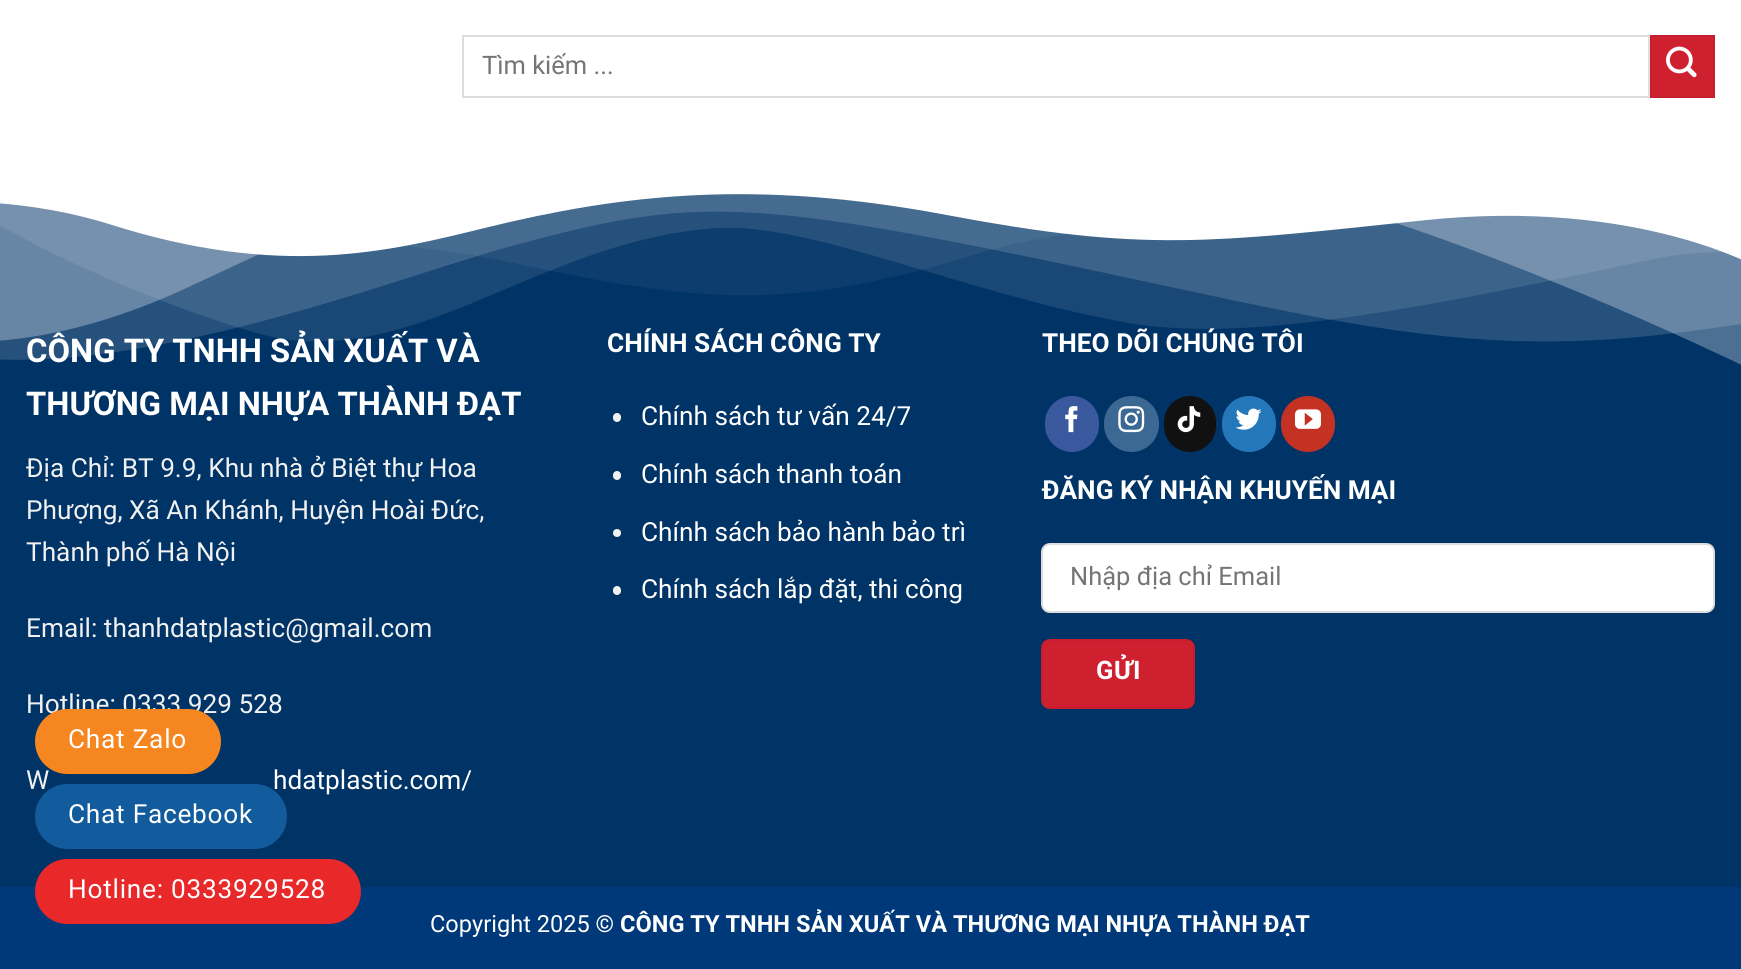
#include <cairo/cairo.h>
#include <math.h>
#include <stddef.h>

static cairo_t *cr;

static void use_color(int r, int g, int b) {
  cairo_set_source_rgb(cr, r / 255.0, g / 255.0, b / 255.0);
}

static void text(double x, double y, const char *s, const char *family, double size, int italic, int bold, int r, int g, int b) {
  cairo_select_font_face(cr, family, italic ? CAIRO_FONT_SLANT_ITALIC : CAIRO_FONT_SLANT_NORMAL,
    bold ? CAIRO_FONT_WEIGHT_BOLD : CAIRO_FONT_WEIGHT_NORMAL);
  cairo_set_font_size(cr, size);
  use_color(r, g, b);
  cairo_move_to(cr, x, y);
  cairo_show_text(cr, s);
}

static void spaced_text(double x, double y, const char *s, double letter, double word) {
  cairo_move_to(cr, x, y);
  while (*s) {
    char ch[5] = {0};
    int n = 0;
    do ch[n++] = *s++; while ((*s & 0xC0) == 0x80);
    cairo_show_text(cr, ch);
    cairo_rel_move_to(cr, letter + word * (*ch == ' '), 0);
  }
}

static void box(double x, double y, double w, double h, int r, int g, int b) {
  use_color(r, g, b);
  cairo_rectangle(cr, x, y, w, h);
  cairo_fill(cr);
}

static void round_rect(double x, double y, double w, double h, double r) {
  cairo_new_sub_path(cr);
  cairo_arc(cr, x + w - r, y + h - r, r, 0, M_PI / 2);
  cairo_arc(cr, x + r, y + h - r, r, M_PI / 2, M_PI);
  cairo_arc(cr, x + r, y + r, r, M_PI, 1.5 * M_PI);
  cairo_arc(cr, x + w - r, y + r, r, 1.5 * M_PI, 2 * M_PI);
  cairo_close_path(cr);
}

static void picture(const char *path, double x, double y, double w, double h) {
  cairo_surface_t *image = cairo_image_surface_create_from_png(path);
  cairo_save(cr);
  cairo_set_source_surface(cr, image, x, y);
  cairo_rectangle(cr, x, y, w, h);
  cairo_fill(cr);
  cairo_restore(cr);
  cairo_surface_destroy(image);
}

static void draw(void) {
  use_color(255, 255, 255);
  cairo_paint(cr);
  cairo_rectangle(cr, 463, 36, 1186, 61);
  use_color(221, 221, 221);
  cairo_stroke(cr);
  use_color(207, 32, 48);
  cairo_rectangle(cr, 1651, 36, 63, 61);
  cairo_fill_preserve(cr);
  use_color(197, 30, 46);
  cairo_stroke(cr);
  picture("img_01.png", 1666, 46, 31, 32);
  box(0, 194, 1741, 693, 0, 51, 102);
  picture("img_02.png", 0, 186, 1741, 179);
  use_color(241, 241, 241);
  round_rect(613, 413, 8, 9, 4);
  cairo_fill(cr);
  round_rect(613, 471, 8, 9, 4);
  cairo_fill(cr);
  cairo_arc(cr, 617, 533, 4, 0, 2 * M_PI);
  cairo_fill(cr);
  round_rect(613, 586, 8, 9, 4);
  cairo_fill(cr);
  use_color(58, 88, 157);
  round_rect(1046, 397, 52, 54, 26);
  cairo_fill_preserve(cr);
  cairo_stroke(cr);
  picture("img_03.png", 1065, 406, 13, 27);
  use_color(59, 105, 148);
  round_rect(1105, 397, 53, 54, 26.5);
  cairo_fill_preserve(cr);
  cairo_stroke(cr);
  picture("img_04.png", 1118, 406, 27, 27);
  use_color(17, 17, 17);
  round_rect(1165, 397, 50, 54, 25);
  cairo_fill_preserve(cr);
  cairo_stroke(cr);
  picture("img_05.png", 1177, 406, 24, 27);
  use_color(36, 120, 186);
  round_rect(1223, 397, 52, 54, 26);
  cairo_fill_preserve(cr);
  cairo_stroke(cr);
  picture("img_06.png", 1235, 408, 27, 22);
  use_color(195, 50, 35);
  round_rect(1282, 397, 52, 54, 26);
  cairo_fill_preserve(cr);
  cairo_stroke(cr);
  picture("img_07.png", 1295, 409, 26, 20);
  use_color(255, 255, 255);
  round_rect(1042, 544, 672, 68, 8);
  cairo_fill_preserve(cr);
  use_color(221, 221, 221);
  cairo_stroke(cr);
  use_color(207, 32, 48);
  round_rect(1041, 639, 154, 70, 9);
  cairo_fill(cr);
  cairo_rectangle(cr, 1042, 640, 152, 68);
  cairo_set_source_rgba(cr, 0, 0, 0, 0.05);
  cairo_stroke(cr);
  box(0, 887, 1741, 82, 0, 57, 121);
  use_color(232, 40, 41);
  round_rect(35, 859, 326, 65, 32.5);
  cairo_fill(cr);
  text(482, 74, "Tìm kiếm ...", "Roboto", 25.5, 0, 0, 117, 117, 117);
  text(26, 362, "CÔNG TY TNHH SẢN XUẤT VÀ", "Roboto", 32.75, 0, 1, 255, 255, 255);
  text(26, 415, "THƯƠNG MẠI NHỰA THÀNH ĐẠT", "Roboto", 32.75, 0, 1, 255, 255, 255);
  text(26, 477, "Địa Chỉ: BT 9.9, Khu nhà ở Biệt thự Hoa", "Roboto", 26.25, 0, 0, 241, 241, 241);
  text(26, 519, "Phượng, Xã An Khánh, Huyện Hoài Đức,", "Roboto", 26.25, 0, 0, 241, 241, 241);
  text(26, 561, "Thành phố Hà Nội", "Roboto", 26.25, 0, 0, 241, 241, 241);
  text(26, 637, "Email: thanhdatplastic@gmail.com", "Roboto", 26.25, 0, 0, 241, 241, 241);
  text(26, 713, "Hotline: 0333 929 528", "Roboto", 26.25, 0, 0, 241, 241, 241);
  text(26, 789, "W", "Roboto", 26.25, 0, 0, 241, 241, 241);
  text(273, 789, "hdatplastic.com/", "Roboto", 26.25, 0, 0, 255, 255, 255);
  text(607, 352, "CHÍNH SÁCH CÔNG TY", "Roboto", 26.25, 0, 1, 255, 255, 255);
  text(641, 425, "Chính sách tư vấn 24/7", "Roboto", 26.25, 0, 0, 255, 255, 255);
  text(641, 483, "Chính sách thanh toán", "Roboto", 26.25, 0, 0, 255, 255, 255);
  text(641, 541, "Chính sách bảo hành bảo trì", "Roboto", 26.25, 0, 0, 255, 255, 255);
  text(641, 598, "Chính sách lắp đặt, thi công", "Roboto", 26.25, 0, 0, 255, 255, 255);
  text(1042, 352, "THEO DÕI CHÚNG TÔI", "Roboto", 26.25, 0, 1, 255, 255, 255);
  text(1042, 499, "ĐĂNG KÝ NHẬN KHUYẾN MẠI", "Roboto", 26.25, 0, 1, 255, 255, 255);
  text(1070, 585, "Nhập địa chỉ Email", "Roboto", 25.5, 0, 0, 117, 117, 117);
  cairo_select_font_face(cr, "Roboto", CAIRO_FONT_SLANT_NORMAL, CAIRO_FONT_WEIGHT_BOLD);
  use_color(255, 255, 255);
  spaced_text(1096, 679, "GỬI", 0.75, 0);
  text(430, 932, "Copyright 2025 ©", "Roboto", 23.6, 0, 0, 255, 255, 255);
  text(620, 932, "CÔNG TY TNHH SẢN XUẤT VÀ THƯƠNG MẠI NHỰA THÀNH ĐẠT", "Roboto", 23.6, 0, 1, 255, 255, 255);
  use_color(245, 134, 32);
  round_rect(35, 709, 186, 65, 32.5);
  cairo_fill(cr);
  cairo_select_font_face(cr, "Roboto", CAIRO_FONT_SLANT_NORMAL, CAIRO_FONT_WEIGHT_NORMAL);
  cairo_set_font_size(cr, 26.25);
  use_color(255, 255, 255);
  spaced_text(68, 748, "Chat Zalo", 0.75, 0);
  use_color(18, 92, 158);
  round_rect(35, 784, 252, 65, 32.5);
  cairo_fill(cr);
  use_color(255, 255, 255);
  spaced_text(68, 823, "Chat Facebook", 0.75, 0);
  spaced_text(68, 898, "Hotline: 0333929528", 0.75, 0);
}

int main(void) {
  cairo_surface_t *surface = cairo_image_surface_create(CAIRO_FORMAT_RGB24, 1741, 969);
  cr = cairo_create(surface);
  cairo_font_options_t *options = cairo_font_options_create();
  cairo_font_options_set_hint_metrics(options, CAIRO_HINT_METRICS_OFF);
  cairo_font_options_set_hint_style(options, CAIRO_HINT_STYLE_NONE);
  cairo_set_font_options(cr, options);
  cairo_set_miter_limit(cr, 4);
  draw();
  cairo_surface_write_to_png(surface, "out.png");
  cairo_font_options_destroy(options);
  cairo_destroy(cr);
  cairo_surface_destroy(surface);
  return 0;
}
